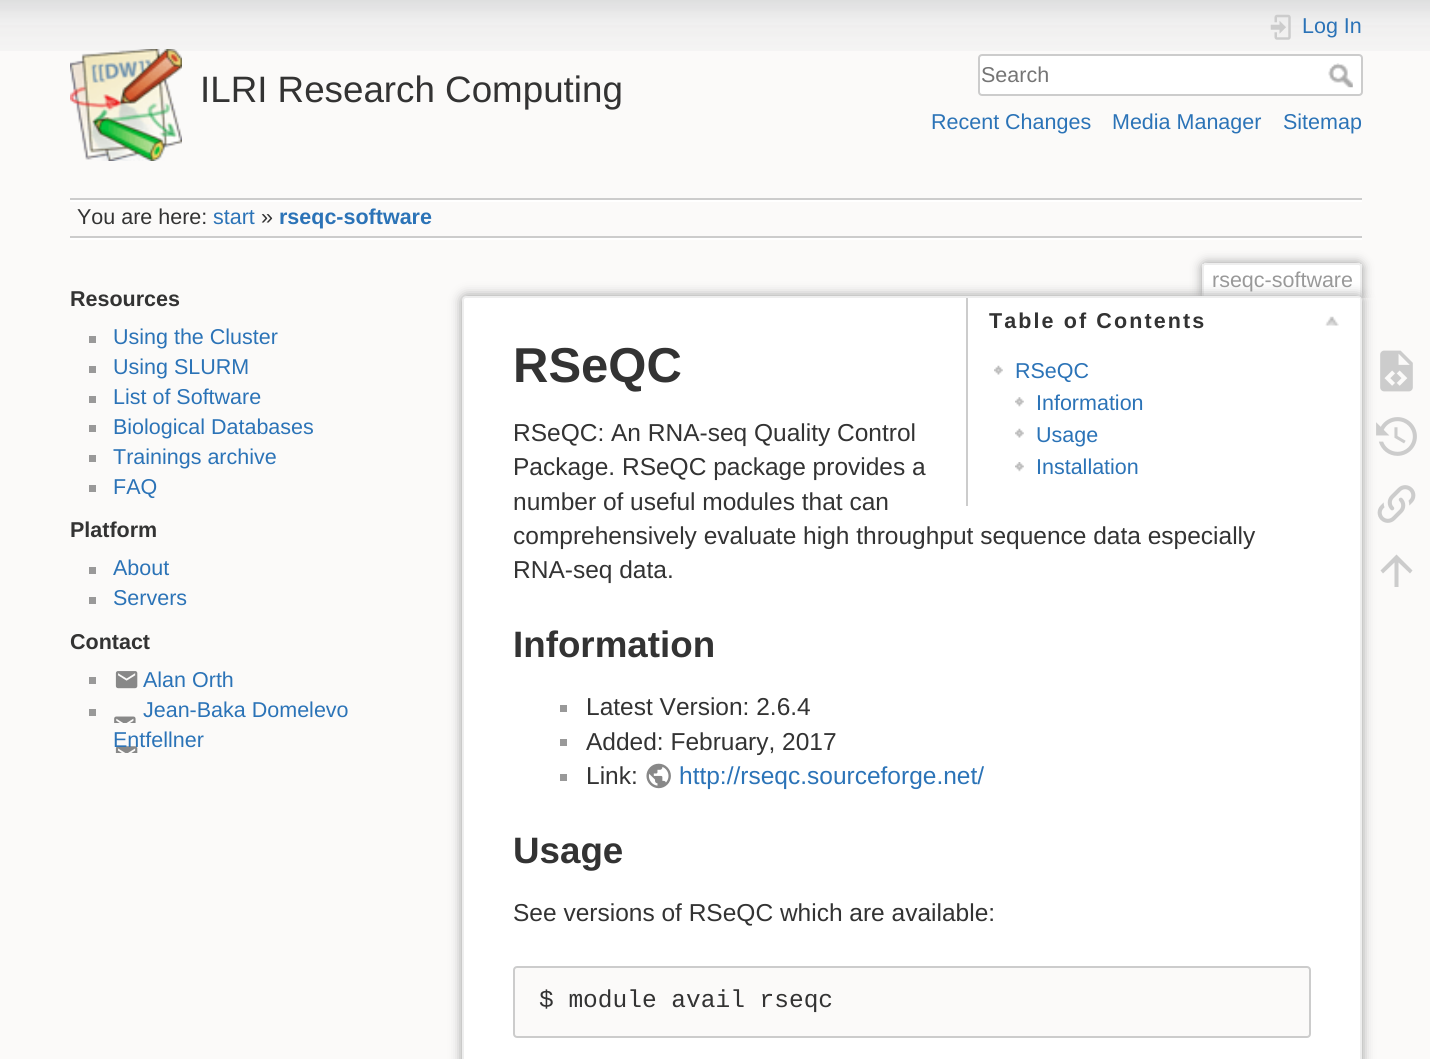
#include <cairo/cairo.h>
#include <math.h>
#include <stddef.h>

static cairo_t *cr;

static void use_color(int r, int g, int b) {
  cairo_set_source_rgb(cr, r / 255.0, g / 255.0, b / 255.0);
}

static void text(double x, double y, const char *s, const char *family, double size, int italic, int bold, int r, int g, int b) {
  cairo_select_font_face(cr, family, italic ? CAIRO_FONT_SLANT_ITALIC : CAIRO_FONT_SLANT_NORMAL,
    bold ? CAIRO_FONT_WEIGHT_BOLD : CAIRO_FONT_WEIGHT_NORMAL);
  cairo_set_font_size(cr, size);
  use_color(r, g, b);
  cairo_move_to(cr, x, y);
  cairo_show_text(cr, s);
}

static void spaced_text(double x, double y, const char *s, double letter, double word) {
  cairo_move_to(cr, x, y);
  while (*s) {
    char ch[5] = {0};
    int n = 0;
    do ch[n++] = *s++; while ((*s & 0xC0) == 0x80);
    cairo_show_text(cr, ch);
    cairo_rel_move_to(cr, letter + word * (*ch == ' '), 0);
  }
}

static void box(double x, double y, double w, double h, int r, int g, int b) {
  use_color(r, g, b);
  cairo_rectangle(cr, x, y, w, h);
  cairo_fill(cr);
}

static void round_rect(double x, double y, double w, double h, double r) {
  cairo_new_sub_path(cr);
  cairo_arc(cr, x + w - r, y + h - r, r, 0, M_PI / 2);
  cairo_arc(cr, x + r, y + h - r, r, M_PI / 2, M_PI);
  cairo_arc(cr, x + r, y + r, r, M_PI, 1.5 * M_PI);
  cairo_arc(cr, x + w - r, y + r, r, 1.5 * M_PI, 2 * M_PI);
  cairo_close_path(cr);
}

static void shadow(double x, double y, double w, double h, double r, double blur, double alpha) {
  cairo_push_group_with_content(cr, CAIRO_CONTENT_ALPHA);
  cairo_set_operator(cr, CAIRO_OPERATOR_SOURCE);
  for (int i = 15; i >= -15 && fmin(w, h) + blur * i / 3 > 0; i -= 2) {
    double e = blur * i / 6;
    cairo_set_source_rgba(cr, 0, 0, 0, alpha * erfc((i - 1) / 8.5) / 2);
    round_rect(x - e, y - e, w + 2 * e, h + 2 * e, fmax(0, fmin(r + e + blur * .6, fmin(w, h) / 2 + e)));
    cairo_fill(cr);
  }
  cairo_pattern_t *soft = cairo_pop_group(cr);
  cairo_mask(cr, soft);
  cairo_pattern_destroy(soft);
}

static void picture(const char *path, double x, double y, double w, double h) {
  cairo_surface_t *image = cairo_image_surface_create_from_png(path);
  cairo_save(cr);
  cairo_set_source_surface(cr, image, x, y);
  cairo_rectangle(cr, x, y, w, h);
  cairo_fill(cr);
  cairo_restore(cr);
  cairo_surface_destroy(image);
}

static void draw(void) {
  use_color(251, 250, 249);
  cairo_paint(cr);
  picture("img_01.png", 0, 0, 1430, 51);
  picture("img_02.png", 70, 49, 112, 112);
  picture("img_03.png", 1270, 14, 21, 26);
  use_color(255, 255, 255);
  round_rect(979, 55, 383, 40, 3);
  cairo_fill_preserve(cr);
  use_color(204, 204, 204);
  cairo_stroke(cr);
  picture("img_04.png", 1328, 63, 25, 25);
  box(70, 198, 1292, 2, 204, 204, 204);
  box(70, 238, 1292, 2, 255, 255, 255);
  box(70, 200, 1292, 2, 255, 255, 255);
  box(70, 236, 1292, 2, 204, 204, 204);
  box(89, 336, 7, 7, 153, 153, 153);
  box(89, 366, 7, 7, 153, 153, 153);
  box(89, 396, 7, 7, 153, 153, 153);
  box(89, 425, 7, 7, 153, 153, 153);
  box(89, 455, 7, 7, 153, 153, 153);
  box(89, 485, 7, 7, 153, 153, 153);
  box(89, 567, 7, 7, 153, 153, 153);
  box(89, 597, 7, 7, 153, 153, 153);
  box(89, 677, 7, 7, 153, 153, 153);
  picture("img_05.png", 115, 671, 23, 18);
  box(89, 709, 7, 7, 153, 153, 153);
  picture("img_06.png", 114, 716, 24, 37);
  cairo_save(cr);
  cairo_rectangle(cr, 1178, 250, 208, 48);
  cairo_clip(cr);
  use_color(153, 153, 153);
  shadow(1202, 263, 160, 35, 4, 5.5, 1);
  cairo_restore(cr);
  use_color(255, 255, 255);
  cairo_new_path(cr);
  cairo_move_to(cr, 1206, 264);
  cairo_line_to(cr, 1358, 264);
  cairo_curve_to(cr, 1359, 264, 1360, 265, 1360, 266);
  cairo_line_to(cr, 1360, 298);
  cairo_line_to(cr, 1204, 298);
  cairo_line_to(cr, 1204, 266);
  cairo_curve_to(cr, 1204, 265, 1205, 264, 1206, 264);
  cairo_close_path(cr);
  cairo_fill(cr);
  box(1204, 263, 156, 2, 238, 238, 238);
  box(1360, 264, 2, 34, 238, 238, 238);
  box(1202, 264, 2, 34, 238, 238, 238);
  use_color(153, 153, 153);
  shadow(462, 296, 900, 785, 4, 6, 1);
  use_color(255, 255, 255);
  round_rect(463, 297, 898, 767, 3);
  cairo_fill_preserve(cr);
  use_color(238, 238, 238);
  cairo_stroke(cr);
  box(1359, 298, 1, 1, 255, 255, 255);
  box(966, 298, 2, 208, 204, 204, 204);
  picture("img_07.png", 1325, 316, 14, 10);
  picture("img_08.png", 994, 365, 9, 10);
  picture("img_09.png", 1015, 397, 9, 10);
  picture("img_10.png", 1015, 428, 9, 10);
  picture("img_11.png", 1015, 462, 9, 10);
  box(560, 705, 7, 7, 153, 153, 153);
  box(560, 739, 7, 7, 153, 153, 153);
  box(560, 774, 7, 7, 153, 153, 153);
  picture("img_12.png", 646, 763, 25, 26);
  use_color(251, 250, 249);
  round_rect(514, 967, 796, 70, 3);
  cairo_fill_preserve(cr);
  use_color(204, 204, 204);
  cairo_stroke(cr);
  picture("img_13.png", 1380, 350, 33, 42);
  picture("img_14.png", 1376, 417, 41, 39);
  picture("img_15.png", 1377, 485, 39, 38);
  cairo_new_path(cr);
  cairo_move_to(cr, 1398.5, 587);
  cairo_line_to(cr, 1394.5, 587);
  cairo_line_to(cr, 1394.5, 562.5);
  cairo_line_to(cr, 1383, 573.5);
  cairo_line_to(cr, 1380.5, 570.5);
  cairo_line_to(cr, 1396.5, 554.5);
  cairo_line_to(cr, 1412.5, 570.5);
  cairo_line_to(cr, 1410, 573.5);
  cairo_line_to(cr, 1398.5, 562.5);
  cairo_close_path(cr);
  cairo_fill(cr);
  text(200, 102, "ILRI Research Computing", "Liberation Sans", 36.75, 0, 0, 51, 51, 51);
  text(1302, 33, "Log In", "Liberation Sans", 21.5, 0, 0, 43, 115, 183);
  text(981, 82, "Search", "Liberation Sans", 21.5, 0, 0, 117, 117, 117);
  text(931, 129, "Recent Changes", "Liberation Sans", 21.5, 0, 0, 43, 115, 183);
  text(1112, 129, "Media Manager", "Liberation Sans", 21.5, 0, 0, 43, 115, 183);
  text(1283, 129, "Sitemap", "Liberation Sans", 21.5, 0, 0, 43, 115, 183);
  text(77, 224, "You are here:", "Liberation Sans", 21.5, 0, 0, 51, 51, 51);
  text(213, 224, "start", "Liberation Sans", 21.5, 0, 0, 43, 115, 183);
  text(261, 224, "»", "Liberation Sans", 21.5, 0, 0, 51, 51, 51);
  text(279, 224, "rseqc-software", "Liberation Sans", 21.5, 0, 1, 43, 115, 183);
  text(70, 306, "Resources", "Liberation Sans", 21.5, 0, 1, 51, 51, 51);
  text(113, 344, "Using the Cluster", "Liberation Sans", 21.5, 0, 0, 43, 115, 183);
  text(113, 374, "Using SLURM", "Liberation Sans", 21.5, 0, 0, 43, 115, 183);
  text(113, 404, "List of Software", "Liberation Sans", 21.5, 0, 0, 43, 115, 183);
  text(113, 434, "Biological Databases", "Liberation Sans", 21.5, 0, 0, 43, 115, 183);
  text(113, 464, "Trainings archive", "Liberation Sans", 21.5, 0, 0, 43, 115, 183);
  text(113, 494, "FAQ", "Liberation Sans", 21.5, 0, 0, 43, 115, 183);
  text(70, 537, "Platform", "Liberation Sans", 21.5, 0, 1, 51, 51, 51);
  text(113, 575, "About", "Liberation Sans", 21.5, 0, 0, 43, 115, 183);
  text(113, 605, "Servers", "Liberation Sans", 21.5, 0, 0, 43, 115, 183);
  text(70, 649, "Contact", "Liberation Sans", 21.5, 0, 1, 51, 51, 51);
  text(143, 687, "Alan Orth", "Liberation Sans", 21.5, 0, 0, 43, 115, 183);
  text(143, 717, "Jean-Baka Domelevo", "Liberation Sans", 21.5, 0, 0, 43, 115, 183);
  text(113, 747, "Entfellner", "Liberation Sans", 21.5, 0, 0, 43, 115, 183);
  text(1212, 287, "rseqc-software", "Liberation Sans", 21.5, 0, 0, 153, 153, 153);
  text(513, 382, "RSeQC", "Liberation Sans", 49, 0, 1, 51, 51, 51);
  cairo_set_font_size(cr, 21.5);
  spaced_text(989, 328, "Table of Contents", 2.1, 0);
  text(1015, 378, "RSeQC", "Liberation Sans", 21.5, 0, 0, 43, 115, 183);
  text(1036, 410, "Information", "Liberation Sans", 21.5, 0, 0, 43, 115, 183);
  text(1036, 442, "Usage", "Liberation Sans", 21.5, 0, 0, 43, 115, 183);
  text(1036, 474, "Installation", "Liberation Sans", 21.5, 0, 0, 43, 115, 183);
  text(513, 441, "RSeQC: An RNA-seq Quality Control", "Liberation Sans", 24.5, 0, 0, 51, 51, 51);
  text(513, 475, "Package. RSeQC package provides a", "Liberation Sans", 24.5, 0, 0, 51, 51, 51);
  text(513, 510, "number of useful modules that can", "Liberation Sans", 24.5, 0, 0, 51, 51, 51);
  text(513, 544, "comprehensively evaluate high throughput sequence data especially", "Liberation Sans", 24.5, 0, 0, 51, 51, 51);
  text(513, 578, "RNA-seq data.", "Liberation Sans", 24.5, 0, 0, 51, 51, 51);
  text(513, 657, "Information", "Liberation Sans", 36.75, 0, 1, 51, 51, 51);
  text(586, 715, "Latest Version: 2.6.4", "Liberation Sans", 24.5, 0, 0, 51, 51, 51);
  text(586, 750, "Added: February, 2017", "Liberation Sans", 24.5, 0, 0, 51, 51, 51);
  text(586, 784, "Link:", "Liberation Sans", 24.5, 0, 0, 51, 51, 51);
  text(679, 784, "http://rseqc.sourceforge.net/", "Liberation Sans", 24.5, 0, 0, 43, 115, 183);
  text(513, 863, "Usage", "Liberation Sans", 36.75, 0, 1, 51, 51, 51);
  text(513, 921, "See versions of RSeQC which are available:", "Liberation Sans", 24.5, 0, 0, 51, 51, 51);
  text(539, 1007, "$ module avail rseqc", "Liberation Mono", 24.5, 0, 0, 51, 51, 51);
}

int main(void) {
  cairo_surface_t *surface = cairo_image_surface_create(CAIRO_FORMAT_RGB24, 1430, 1059);
  cr = cairo_create(surface);
  cairo_font_options_t *options = cairo_font_options_create();
  cairo_font_options_set_hint_metrics(options, CAIRO_HINT_METRICS_OFF);
  cairo_font_options_set_hint_style(options, CAIRO_HINT_STYLE_NONE);
  cairo_set_font_options(cr, options);
  cairo_set_miter_limit(cr, 4);
  draw();
  cairo_surface_write_to_png(surface, "out.png");
  cairo_font_options_destroy(options);
  cairo_destroy(cr);
  cairo_surface_destroy(surface);
  return 0;
}
